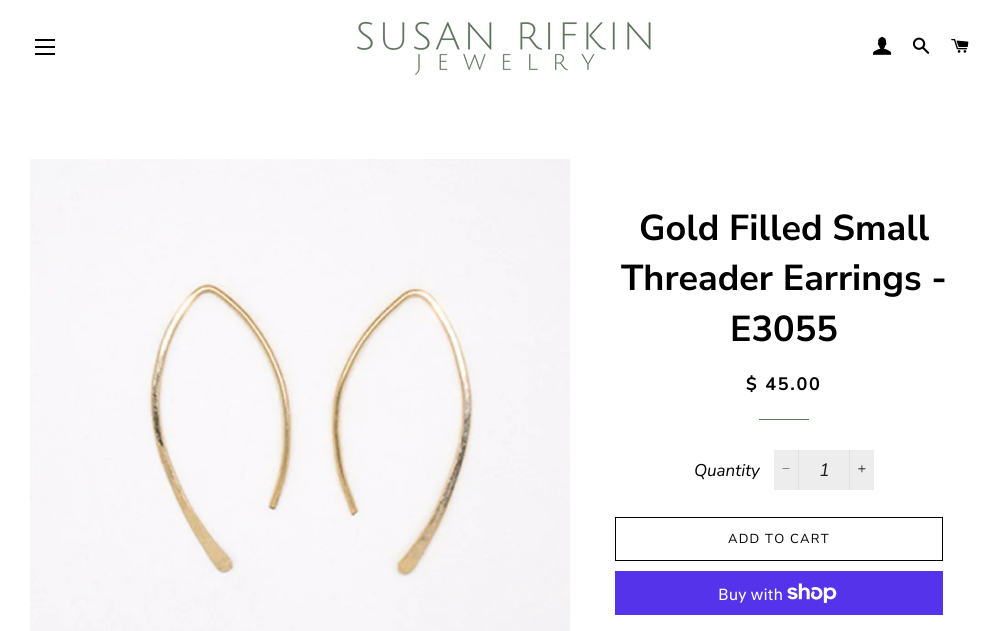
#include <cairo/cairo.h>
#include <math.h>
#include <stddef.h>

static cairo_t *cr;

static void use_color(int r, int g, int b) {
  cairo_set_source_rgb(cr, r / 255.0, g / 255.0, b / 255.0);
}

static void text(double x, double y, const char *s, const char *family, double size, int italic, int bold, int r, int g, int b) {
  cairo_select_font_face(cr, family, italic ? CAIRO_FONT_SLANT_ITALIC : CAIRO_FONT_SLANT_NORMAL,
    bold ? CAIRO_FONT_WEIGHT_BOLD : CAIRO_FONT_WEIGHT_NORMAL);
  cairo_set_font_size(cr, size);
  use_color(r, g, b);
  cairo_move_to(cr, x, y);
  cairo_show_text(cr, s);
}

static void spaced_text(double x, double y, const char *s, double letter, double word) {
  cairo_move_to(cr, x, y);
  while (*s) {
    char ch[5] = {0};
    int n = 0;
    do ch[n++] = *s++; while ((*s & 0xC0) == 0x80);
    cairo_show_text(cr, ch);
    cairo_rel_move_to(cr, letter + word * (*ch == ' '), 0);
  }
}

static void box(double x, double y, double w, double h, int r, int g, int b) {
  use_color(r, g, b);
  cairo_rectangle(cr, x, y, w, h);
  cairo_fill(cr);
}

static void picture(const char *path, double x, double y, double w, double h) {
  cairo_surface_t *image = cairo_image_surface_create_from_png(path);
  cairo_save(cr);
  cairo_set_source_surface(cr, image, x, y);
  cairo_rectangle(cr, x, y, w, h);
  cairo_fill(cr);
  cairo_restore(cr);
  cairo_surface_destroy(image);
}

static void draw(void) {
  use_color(255, 255, 255);
  cairo_paint(cr);
  box(35, 39, 20, 2, 0, 0, 0);
  box(35, 46, 20, 2, 0, 0, 0);
  box(35, 53, 20, 2, 0, 0, 0);
  picture("img_01.png", 357, 21, 294, 54);
  picture("img_02.png", 873, 36, 19, 19);
  picture("img_03.png", 912, 37, 18, 17);
  picture("img_04.png", 951, 38, 18, 15);
  picture("img_05.png", 30, 159, 540, 472);
  box(759, 419, 50, 1, 96, 118, 95);
  box(774, 450, 100, 40, 237, 237, 237);
  box(798, 450, 1, 40, 224, 224, 224);
  use_color(28, 29, 29);
  cairo_new_path(cr);
  cairo_move_to(cr, 782.5, 468.5);
  cairo_line_to(cr, 789.5, 468.5);
  cairo_line_to(cr, 789.5, 469);
  cairo_line_to(cr, 782.5, 469);
  cairo_close_path(cr);
  cairo_fill(cr);
  box(849, 450, 1, 40, 224, 224, 224);
  picture("img_06.png", 858, 465, 8, 8);
  cairo_rectangle(cr, 615.5, 517.5, 327, 43);
  use_color(0, 0, 0);
  cairo_set_line_width(cr, 1);
  cairo_stroke(cr);
  box(615, 571, 328, 44, 84, 51, 235);
  picture("img_07.png", 787, 583, 50, 20);
  text(639, 240, "Gold Filled Small", "Nunito Sans", 36, 0, 1, 0, 0, 0);
  text(621, 290, "Threader Earrings -", "Nunito Sans", 36, 0, 1, 0, 0, 0);
  text(730, 341, "E3055", "Nunito Sans", 36, 0, 1, 0, 0, 0);
  cairo_set_font_size(cr, 18);
  spaced_text(746, 390, "$ 45.00", 1.75, 0);
  text(694, 476, "Quantity", "Nunito Sans", 17, 1, 0, 0, 0, 0);
  text(819, 476, "1", "Nunito Sans", 18, 1, 0, 28, 29, 29);
  cairo_select_font_face(cr, "Nunito Sans", CAIRO_FONT_SLANT_NORMAL, CAIRO_FONT_WEIGHT_NORMAL);
  cairo_set_font_size(cr, 13);
  use_color(0, 0, 0);
  spaced_text(728, 543, "ADD TO CART", 1.25, 0);
  text(718, 600, "Buy with", "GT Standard", 16, 0, 0, 255, 255, 255);
}

int main(void) {
  cairo_surface_t *surface = cairo_image_surface_create(CAIRO_FORMAT_RGB24, 1008, 631);
  cr = cairo_create(surface);
  cairo_font_options_t *options = cairo_font_options_create();
  cairo_font_options_set_hint_metrics(options, CAIRO_HINT_METRICS_OFF);
  cairo_font_options_set_hint_style(options, CAIRO_HINT_STYLE_NONE);
  cairo_set_font_options(cr, options);
  cairo_set_miter_limit(cr, 4);
  draw();
  cairo_surface_write_to_png(surface, "out.png");
  cairo_font_options_destroy(options);
  cairo_destroy(cr);
  cairo_surface_destroy(surface);
  return 0;
}
